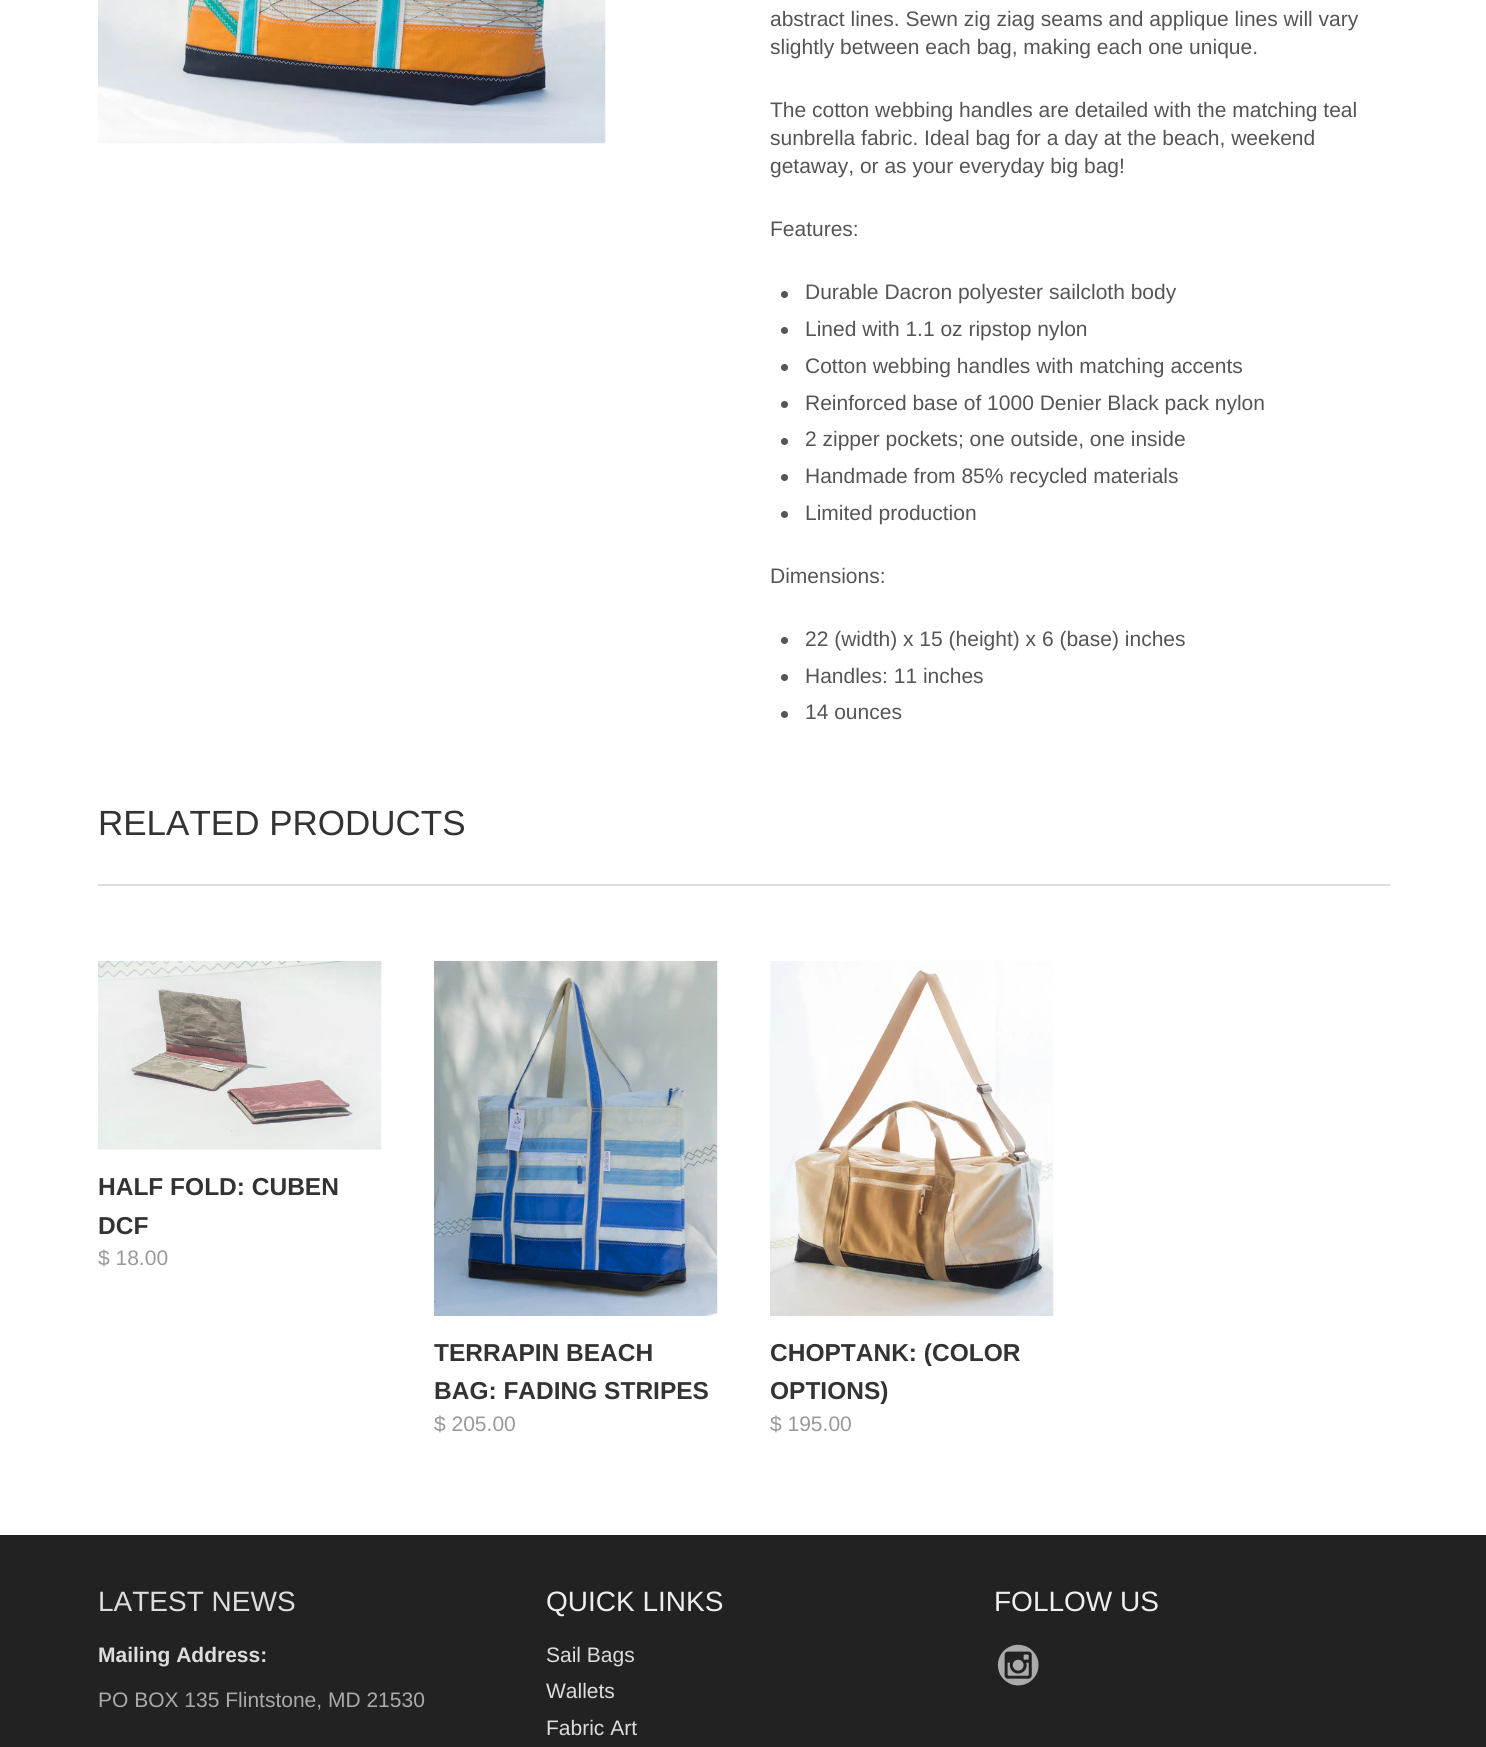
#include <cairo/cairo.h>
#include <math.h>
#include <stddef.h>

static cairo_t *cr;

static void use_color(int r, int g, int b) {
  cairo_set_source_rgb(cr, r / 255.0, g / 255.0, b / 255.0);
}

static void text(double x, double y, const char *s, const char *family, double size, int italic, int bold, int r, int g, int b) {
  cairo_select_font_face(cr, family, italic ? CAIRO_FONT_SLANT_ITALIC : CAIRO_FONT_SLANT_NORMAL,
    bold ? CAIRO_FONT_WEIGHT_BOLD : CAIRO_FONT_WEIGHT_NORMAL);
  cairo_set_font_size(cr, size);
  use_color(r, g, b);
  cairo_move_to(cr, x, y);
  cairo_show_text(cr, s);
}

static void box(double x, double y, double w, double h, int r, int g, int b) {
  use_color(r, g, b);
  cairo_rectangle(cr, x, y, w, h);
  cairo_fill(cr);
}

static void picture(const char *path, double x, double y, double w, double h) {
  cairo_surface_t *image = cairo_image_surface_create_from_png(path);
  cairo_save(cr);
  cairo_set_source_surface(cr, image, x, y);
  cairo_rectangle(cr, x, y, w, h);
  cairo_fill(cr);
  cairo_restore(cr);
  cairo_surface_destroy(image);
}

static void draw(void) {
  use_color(255, 255, 255);
  cairo_paint(cr);
  picture("img_01.png", 98, 0, 508, 144);
  use_color(85, 85, 85);
  cairo_arc(cr, 784.5, 294.5, 3.5, 0, 2 * M_PI);
  cairo_fill(cr);
  cairo_arc(cr, 784.5, 330.5, 3.5, 0, 2 * M_PI);
  cairo_fill(cr);
  cairo_arc(cr, 784.5, 367.5, 3.5, 0, 2 * M_PI);
  cairo_fill(cr);
  cairo_arc(cr, 784.5, 404.5, 3.5, 0, 2 * M_PI);
  cairo_fill(cr);
  cairo_arc(cr, 784.5, 441.5, 3.5, 0, 2 * M_PI);
  cairo_fill(cr);
  cairo_arc(cr, 784.5, 477.5, 3.5, 0, 2 * M_PI);
  cairo_fill(cr);
  cairo_arc(cr, 784.5, 514.5, 3.5, 0, 2 * M_PI);
  cairo_fill(cr);
  cairo_arc(cr, 784.5, 640.5, 3.5, 0, 2 * M_PI);
  cairo_fill(cr);
  cairo_arc(cr, 784.5, 677.5, 3.5, 0, 2 * M_PI);
  cairo_fill(cr);
  cairo_arc(cr, 784.5, 714.5, 3.5, 0, 2 * M_PI);
  cairo_fill(cr);
  box(98, 884, 1292, 2, 221, 221, 221);
  picture("img_02.png", 98, 960, 284, 190);
  picture("img_03.png", 434, 960, 284, 356);
  picture("img_04.png", 770, 961, 284, 355);
  box(0, 1535, 1486, 212, 34, 34, 34);
  picture("img_05.png", 997, 1644, 42, 42);
  text(770, 26, "abstract lines. Sewn zig ziag seams and applique lines will vary", "Liberation Sans", 21, 0, 0, 85, 85, 85);
  text(770, 54, "slightly between each bag, making each one unique.", "Liberation Sans", 21, 0, 0, 85, 85, 85);
  text(770, 117, "The cotton webbing handles are detailed with the matching teal", "Liberation Sans", 21, 0, 0, 85, 85, 85);
  text(770, 145, "sunbrella fabric. Ideal bag for a day at the beach, weekend", "Liberation Sans", 21, 0, 0, 85, 85, 85);
  text(770, 173, "getaway, or as your everyday big bag!", "Liberation Sans", 21, 0, 0, 85, 85, 85);
  text(770, 236, "Features:", "Liberation Sans", 21, 0, 0, 85, 85, 85);
  text(805, 299, "Durable Dacron polyester sailcloth body", "Liberation Sans", 21, 0, 0, 85, 85, 85);
  text(805, 336, "Lined with 1.1 oz ripstop nylon", "Liberation Sans", 21, 0, 0, 85, 85, 85);
  text(805, 373, "Cotton webbing handles with matching accents", "Liberation Sans", 21, 0, 0, 85, 85, 85);
  text(805, 410, "Reinforced base of 1000 Denier Black pack nylon", "Liberation Sans", 21, 0, 0, 85, 85, 85);
  text(805, 446, "2 zipper pockets; one outside, one inside", "Liberation Sans", 21, 0, 0, 85, 85, 85);
  text(805, 483, "Handmade from 85% recycled materials", "Liberation Sans", 21, 0, 0, 85, 85, 85);
  text(805, 520, "Limited production", "Liberation Sans", 21, 0, 0, 85, 85, 85);
  text(770, 583, "Dimensions:", "Liberation Sans", 21, 0, 0, 85, 85, 85);
  text(805, 646, "22 (width) x 15 (height) x 6 (base) inches", "Liberation Sans", 21, 0, 0, 85, 85, 85);
  text(805, 683, "Handles: 11 inches", "Liberation Sans", 21, 0, 0, 85, 85, 85);
  text(805, 719, "14 ounces", "Liberation Sans", 21, 0, 0, 85, 85, 85);
  text(98, 835, "RELATED PRODUCTS", "Liberation Sans", 35, 0, 0, 51, 51, 51);
  text(98, 1195, "HALF FOLD: CUBEN", "Liberation Sans", 24.5, 0, 1, 51, 51, 51);
  text(98, 1234, "DCF", "Liberation Sans", 24.5, 0, 1, 51, 51, 51);
  text(98, 1265, "$ 18.00", "Liberation Sans", 21, 0, 0, 153, 153, 153);
  text(434, 1361, "TERRAPIN BEACH", "Liberation Sans", 24.5, 0, 1, 51, 51, 51);
  text(434, 1399, "BAG: FADING STRIPES", "Liberation Sans", 24.5, 0, 1, 51, 51, 51);
  text(434, 1431, "$ 205.00", "Liberation Sans", 21, 0, 0, 153, 153, 153);
  text(770, 1361, "CHOPTANK: (COLOR", "Liberation Sans", 24.5, 0, 1, 51, 51, 51);
  text(770, 1399, "OPTIONS)", "Liberation Sans", 24.5, 0, 1, 51, 51, 51);
  text(770, 1431, "$ 195.00", "Liberation Sans", 21, 0, 0, 153, 153, 153);
  text(98, 1611, "LATEST NEWS", "Liberation Sans", 28, 0, 0, 221, 221, 221);
  text(98, 1662, "Mailing Address:", "Liberation Sans", 21, 0, 1, 221, 221, 221);
  text(98, 1707, "PO BOX 135 Flintstone, MD 21530", "Liberation Sans", 21, 0, 0, 170, 170, 170);
  text(546, 1611, "QUICK LINKS", "Liberation Sans", 28, 0, 0, 238, 238, 238);
  text(546, 1662, "Sail Bags", "Liberation Sans", 21, 0, 0, 221, 221, 221);
  text(546, 1698, "Wallets", "Liberation Sans", 21, 0, 0, 221, 221, 221);
  text(546, 1735, "Fabric Art", "Liberation Sans", 21, 0, 0, 221, 221, 221);
  text(994, 1611, "FOLLOW US", "Liberation Sans", 28, 0, 0, 238, 238, 238);
}

int main(void) {
  cairo_surface_t *surface = cairo_image_surface_create(CAIRO_FORMAT_RGB24, 1486, 1747);
  cr = cairo_create(surface);
  cairo_font_options_t *options = cairo_font_options_create();
  cairo_font_options_set_hint_metrics(options, CAIRO_HINT_METRICS_OFF);
  cairo_font_options_set_hint_style(options, CAIRO_HINT_STYLE_NONE);
  cairo_set_font_options(cr, options);
  cairo_set_miter_limit(cr, 4);
  draw();
  cairo_surface_write_to_png(surface, "out.png");
  cairo_font_options_destroy(options);
  cairo_destroy(cr);
  cairo_surface_destroy(surface);
  return 0;
}
